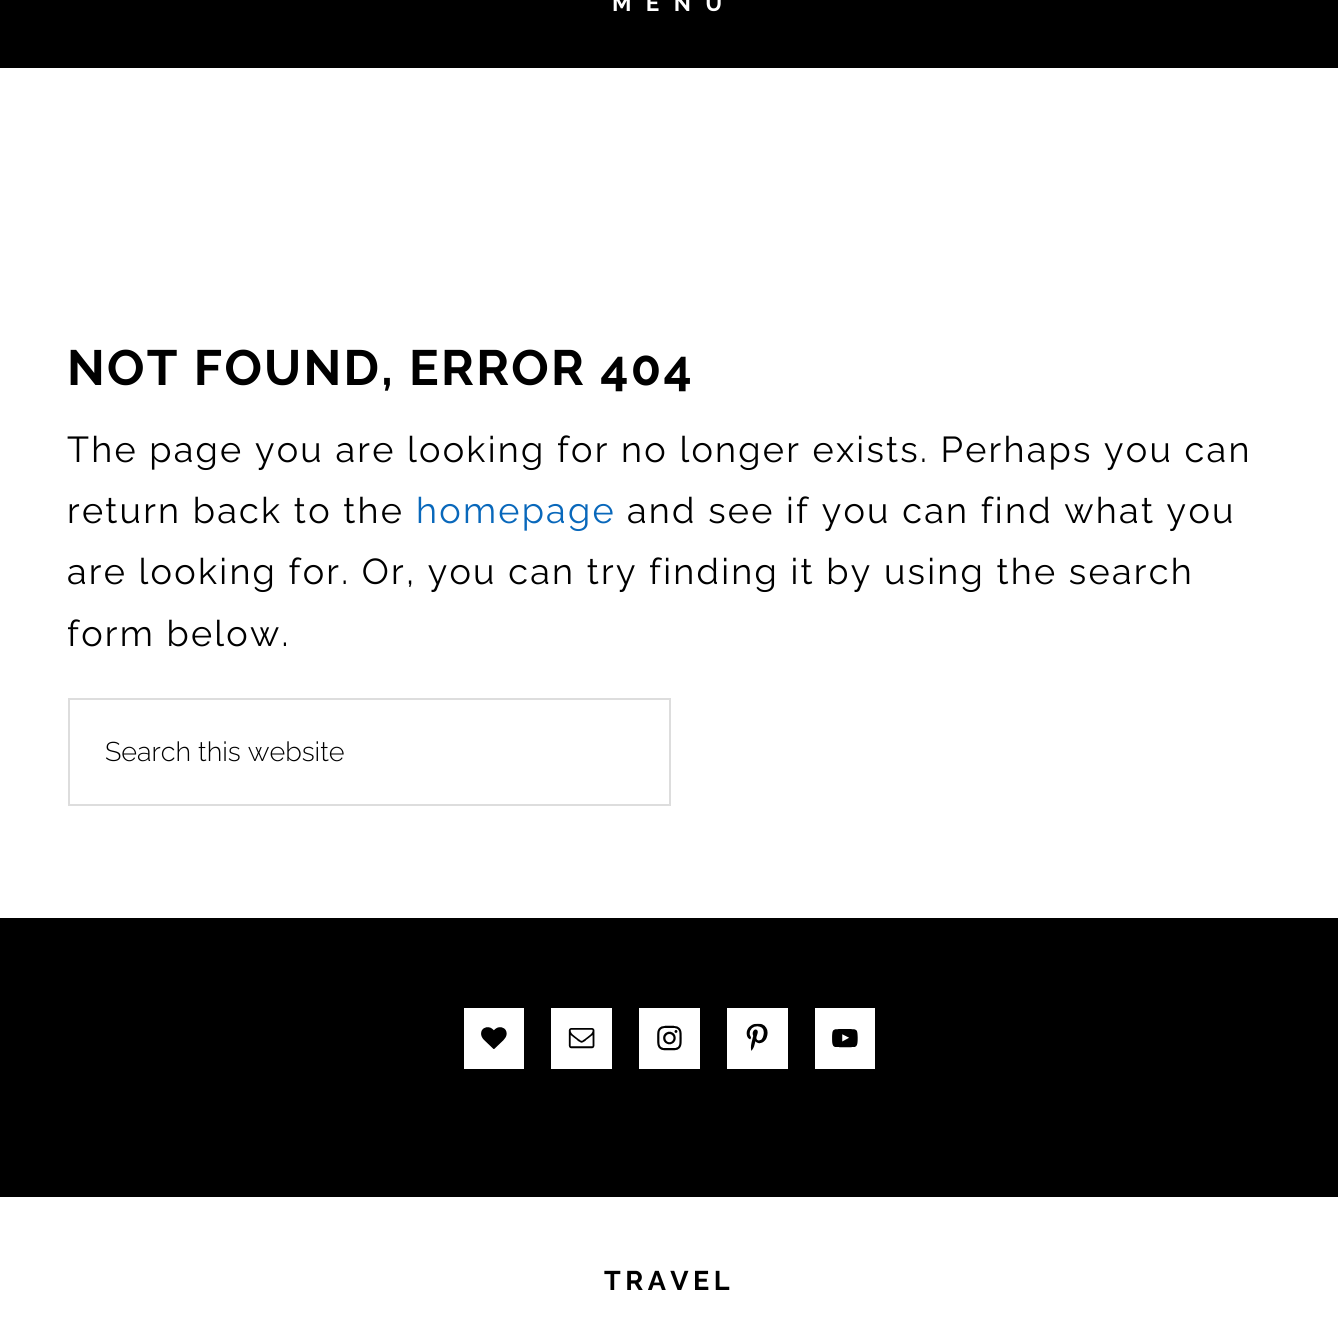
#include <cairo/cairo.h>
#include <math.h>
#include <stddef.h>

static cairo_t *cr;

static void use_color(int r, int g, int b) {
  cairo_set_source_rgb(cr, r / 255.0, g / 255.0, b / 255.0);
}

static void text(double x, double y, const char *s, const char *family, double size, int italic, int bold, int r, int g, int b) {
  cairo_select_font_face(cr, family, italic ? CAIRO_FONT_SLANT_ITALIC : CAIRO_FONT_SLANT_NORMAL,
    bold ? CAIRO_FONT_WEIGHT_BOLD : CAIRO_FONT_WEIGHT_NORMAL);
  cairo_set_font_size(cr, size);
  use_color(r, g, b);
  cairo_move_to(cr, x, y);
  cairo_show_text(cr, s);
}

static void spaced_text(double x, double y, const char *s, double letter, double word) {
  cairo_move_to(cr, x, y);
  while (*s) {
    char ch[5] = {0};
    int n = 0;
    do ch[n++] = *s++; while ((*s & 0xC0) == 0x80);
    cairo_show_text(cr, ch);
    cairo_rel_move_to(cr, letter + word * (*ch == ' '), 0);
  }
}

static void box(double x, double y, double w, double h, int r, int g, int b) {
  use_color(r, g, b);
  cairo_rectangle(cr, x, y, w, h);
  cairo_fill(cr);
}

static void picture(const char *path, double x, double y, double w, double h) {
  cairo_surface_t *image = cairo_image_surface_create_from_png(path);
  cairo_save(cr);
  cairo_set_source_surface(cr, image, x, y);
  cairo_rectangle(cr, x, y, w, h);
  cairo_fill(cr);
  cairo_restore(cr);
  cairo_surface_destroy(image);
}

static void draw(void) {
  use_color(255, 255, 255);
  cairo_paint(cr);
  box(0, 0, 1338, 68, 0, 0, 0);
  cairo_rectangle(cr, 69, 699, 601, 106);
  use_color(221, 221, 221);
  cairo_stroke(cr);
  box(0, 918, 1338, 279, 0, 0, 0);
  box(464, 1008, 60, 61, 255, 255, 255);
  picture("img_01.png", 481, 1027, 26, 22);
  box(551, 1008, 61, 61, 255, 255, 255);
  picture("img_02.png", 568, 1028, 27, 21);
  box(639, 1008, 61, 61, 255, 255, 255);
  picture("img_03.png", 657, 1025, 25, 26);
  box(727, 1008, 61, 61, 255, 255, 255);
  picture("img_04.png", 746, 1023, 22, 28);
  box(815, 1008, 60, 61, 255, 255, 255);
  picture("img_05.png", 832, 1029, 26, 19);
  cairo_select_font_face(cr, "Raleway", CAIRO_FONT_SLANT_NORMAL, CAIRO_FONT_WEIGHT_BOLD);
  cairo_set_font_size(cr, 22.5);
  spaced_text(612, 11, "M E N U", 4.5, 0);
  cairo_set_font_size(cr, 49.5);
  use_color(0, 0, 0);
  spaced_text(67, 385, "NOT FOUND, ERROR 404", 2.25, 0);
  cairo_select_font_face(cr, "Raleway", CAIRO_FONT_SLANT_NORMAL, CAIRO_FONT_WEIGHT_NORMAL);
  cairo_set_font_size(cr, 36);
  spaced_text(67, 462, "The page you are looking for no longer exists. Perhaps you can", 2.25, 0);
  spaced_text(67, 523, "return back to the", 2.25, 0);
  use_color(9, 104, 187);
  spaced_text(416, 523, "homepage", 2.25, 0);
  use_color(0, 0, 0);
  spaced_text(627, 523, "and see if you can find what you", 2.25, 0);
  spaced_text(67, 584, "are looking for. Or, you can try finding it by using the search", 2.25, 0);
  spaced_text(67, 646, "form below.", 2.25, 0);
  text(105, 761, "Search this website", "Raleway Light", 27, 0, 0, 0, 0, 0);
  cairo_select_font_face(cr, "Raleway", CAIRO_FONT_SLANT_NORMAL, CAIRO_FONT_WEIGHT_BOLD);
  spaced_text(604, 1290, "TRAVEL", 4.5, 0);
}

int main(void) {
  cairo_surface_t *surface = cairo_image_surface_create(CAIRO_FORMAT_RGB24, 1338, 1329);
  cr = cairo_create(surface);
  cairo_font_options_t *options = cairo_font_options_create();
  cairo_font_options_set_hint_metrics(options, CAIRO_HINT_METRICS_OFF);
  cairo_font_options_set_hint_style(options, CAIRO_HINT_STYLE_NONE);
  cairo_set_font_options(cr, options);
  cairo_set_miter_limit(cr, 4);
  draw();
  cairo_surface_write_to_png(surface, "out.png");
  cairo_font_options_destroy(options);
  cairo_destroy(cr);
  cairo_surface_destroy(surface);
  return 0;
}
